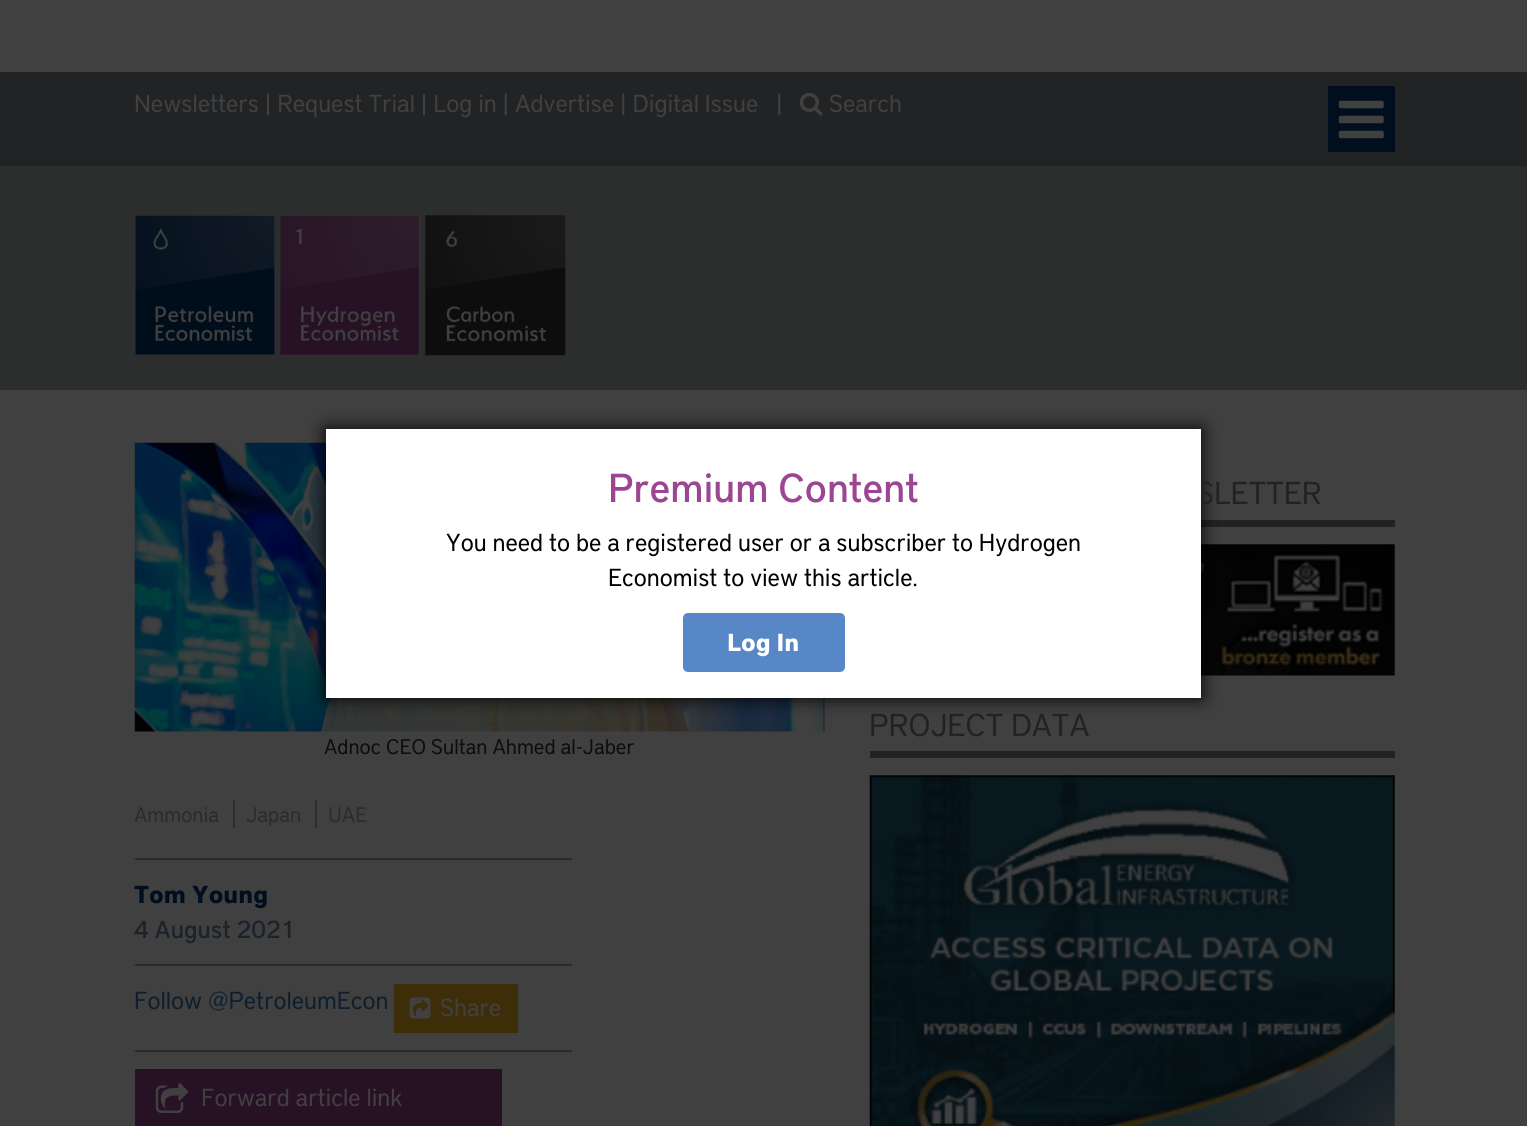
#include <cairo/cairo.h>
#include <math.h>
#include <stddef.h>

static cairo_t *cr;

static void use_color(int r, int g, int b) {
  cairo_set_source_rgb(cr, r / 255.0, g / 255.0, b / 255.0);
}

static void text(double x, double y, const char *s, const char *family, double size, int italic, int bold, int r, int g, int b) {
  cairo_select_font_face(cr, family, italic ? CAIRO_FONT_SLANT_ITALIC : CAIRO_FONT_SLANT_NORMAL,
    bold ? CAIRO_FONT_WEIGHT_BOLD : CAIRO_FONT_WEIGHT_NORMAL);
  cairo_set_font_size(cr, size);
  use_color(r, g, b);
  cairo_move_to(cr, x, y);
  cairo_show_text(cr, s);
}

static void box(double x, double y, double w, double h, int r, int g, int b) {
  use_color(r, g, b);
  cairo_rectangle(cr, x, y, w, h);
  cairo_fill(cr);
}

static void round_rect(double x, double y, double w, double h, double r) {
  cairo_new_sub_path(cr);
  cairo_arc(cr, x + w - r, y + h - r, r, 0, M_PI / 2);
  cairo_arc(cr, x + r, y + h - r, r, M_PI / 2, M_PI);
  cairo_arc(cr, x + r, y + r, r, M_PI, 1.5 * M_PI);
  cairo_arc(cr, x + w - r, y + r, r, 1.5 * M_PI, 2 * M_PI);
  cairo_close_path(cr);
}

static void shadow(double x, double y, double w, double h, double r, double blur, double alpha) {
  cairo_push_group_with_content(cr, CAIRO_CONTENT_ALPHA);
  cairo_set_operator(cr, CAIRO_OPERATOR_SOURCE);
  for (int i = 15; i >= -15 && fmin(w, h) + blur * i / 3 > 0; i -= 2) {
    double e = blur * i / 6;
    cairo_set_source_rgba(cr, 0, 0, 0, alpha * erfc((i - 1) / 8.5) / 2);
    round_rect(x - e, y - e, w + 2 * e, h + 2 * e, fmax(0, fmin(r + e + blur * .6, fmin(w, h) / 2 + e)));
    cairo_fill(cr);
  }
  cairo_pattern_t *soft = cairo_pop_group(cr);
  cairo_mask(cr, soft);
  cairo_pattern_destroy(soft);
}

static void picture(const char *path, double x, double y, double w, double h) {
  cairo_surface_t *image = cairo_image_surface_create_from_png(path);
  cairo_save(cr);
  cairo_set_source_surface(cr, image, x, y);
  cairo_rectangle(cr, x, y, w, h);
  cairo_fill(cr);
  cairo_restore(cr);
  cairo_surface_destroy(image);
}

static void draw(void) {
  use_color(64, 64, 64);
  cairo_paint(cr);
  box(0, 166, 1527, 224, 44, 45, 45);
  box(0, 72, 1527, 94, 33, 35, 37);
  picture("img_01.png", 799, 92, 24, 24);
  box(1328, 86, 67, 66, 0, 14, 30);
  picture("img_02.png", 1338, 100, 46, 39);
  picture("img_03.png", 134, 215, 141, 141);
  picture("img_04.png", 280, 215, 140, 141);
  picture("img_05.png", 425, 215, 141, 141);
  box(1201, 520, 194, 7, 34, 34, 34);
  picture("img_06.png", 1201, 544, 194, 132);
  picture("img_08.png", 134, 442, 691, 290);
  use_color(0, 0, 0);
  shadow(326, 429, 875, 269, 0, 9, 1);
  box(870, 751, 525, 7, 34, 34, 34);
  picture("img_07.png", 869, 775, 526, 351);
  box(233, 800, 2, 28, 44, 47, 49);
  box(315, 800, 2, 28, 44, 47, 49);
  box(135, 858, 437, 2, 38, 44, 50);
  box(135, 964, 437, 2, 38, 44, 50);
  box(135, 1050, 437, 2, 38, 44, 50);
  box(394, 984, 124, 49, 62, 45, 9);
  picture("img_09.png", 409, 997, 22, 22);
  box(135, 1069, 367, 57, 39, 17, 37);
  picture("img_10.png", 155, 1083, 34, 30);
  text(134, 112, "Newsletters | Request Trial | Log in | Advertise | Digital Issue", "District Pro", 24.5, 0, 0, 64, 64, 64);
  text(776, 112, "|", "District Pro", 24.5, 0, 0, 64, 64, 64);
  text(829, 112, "Search", "District Pro", 24.5, 0, 0, 64, 64, 64);
  text(1196, 504, "SLETTER", "District Pro", 31.5, 0, 0, 34, 34, 34);
  box(326, 429, 875, 269, 255, 255, 255);
  use_color(88, 135, 200);
  round_rect(683, 613, 162, 59, 5);
  cairo_fill(cr);
  text(727, 651, "Log In", "District Pro", 24.5, 0, 1, 255, 255, 255);
  text(608, 586, "Economist to view this article.", "District Pro", 24.5, 0, 0, 0, 0, 0);
  text(446, 551, "You need to be a registered user or a subscriber to Hydrogen", "District Pro", 24.5, 0, 0, 0, 0, 0);
  text(608, 502, "Premium Content", "District Pro Medium", 40.25, 0, 0, 155, 69, 147);
  text(869, 736, "PROJECT DATA", "District Pro", 31.5, 0, 0, 34, 34, 34);
  text(324, 754, "Adnoc CEO Sultan Ahmed al-Jaber", "District Pro", 21, 0, 0, 13, 13, 13);
  text(134, 822, "Ammonia", "District Pro", 21, 0, 0, 40, 44, 46);
  text(246, 822, "Japan", "District Pro", 21, 0, 0, 40, 44, 46);
  text(328, 822, "UAE", "District Pro", 21, 0, 0, 40, 44, 46);
  text(134, 903, "Tom Young", "District Pro", 24.5, 0, 1, 0, 14, 30);
  text(134, 938, "4 August 2021", "District Pro Medium", 24.5, 0, 0, 27, 34, 43);
  text(134, 1009, "Follow @PetroleumEcon", "District Pro", 24.5, 0, 0, 13, 31, 46);
  text(440, 1016, "Share", "District Pro", 24.5, 0, 0, 64, 64, 64);
  text(201, 1106, "Forward article link", "District Pro", 24.5, 0, 0, 64, 64, 64);
}

int main(void) {
  cairo_surface_t *surface = cairo_image_surface_create(CAIRO_FORMAT_RGB24, 1527, 1126);
  cr = cairo_create(surface);
  cairo_font_options_t *options = cairo_font_options_create();
  cairo_font_options_set_hint_metrics(options, CAIRO_HINT_METRICS_OFF);
  cairo_font_options_set_hint_style(options, CAIRO_HINT_STYLE_NONE);
  cairo_set_font_options(cr, options);
  cairo_set_miter_limit(cr, 4);
  draw();
  cairo_surface_write_to_png(surface, "out.png");
  cairo_font_options_destroy(options);
  cairo_destroy(cr);
  cairo_surface_destroy(surface);
  return 0;
}
